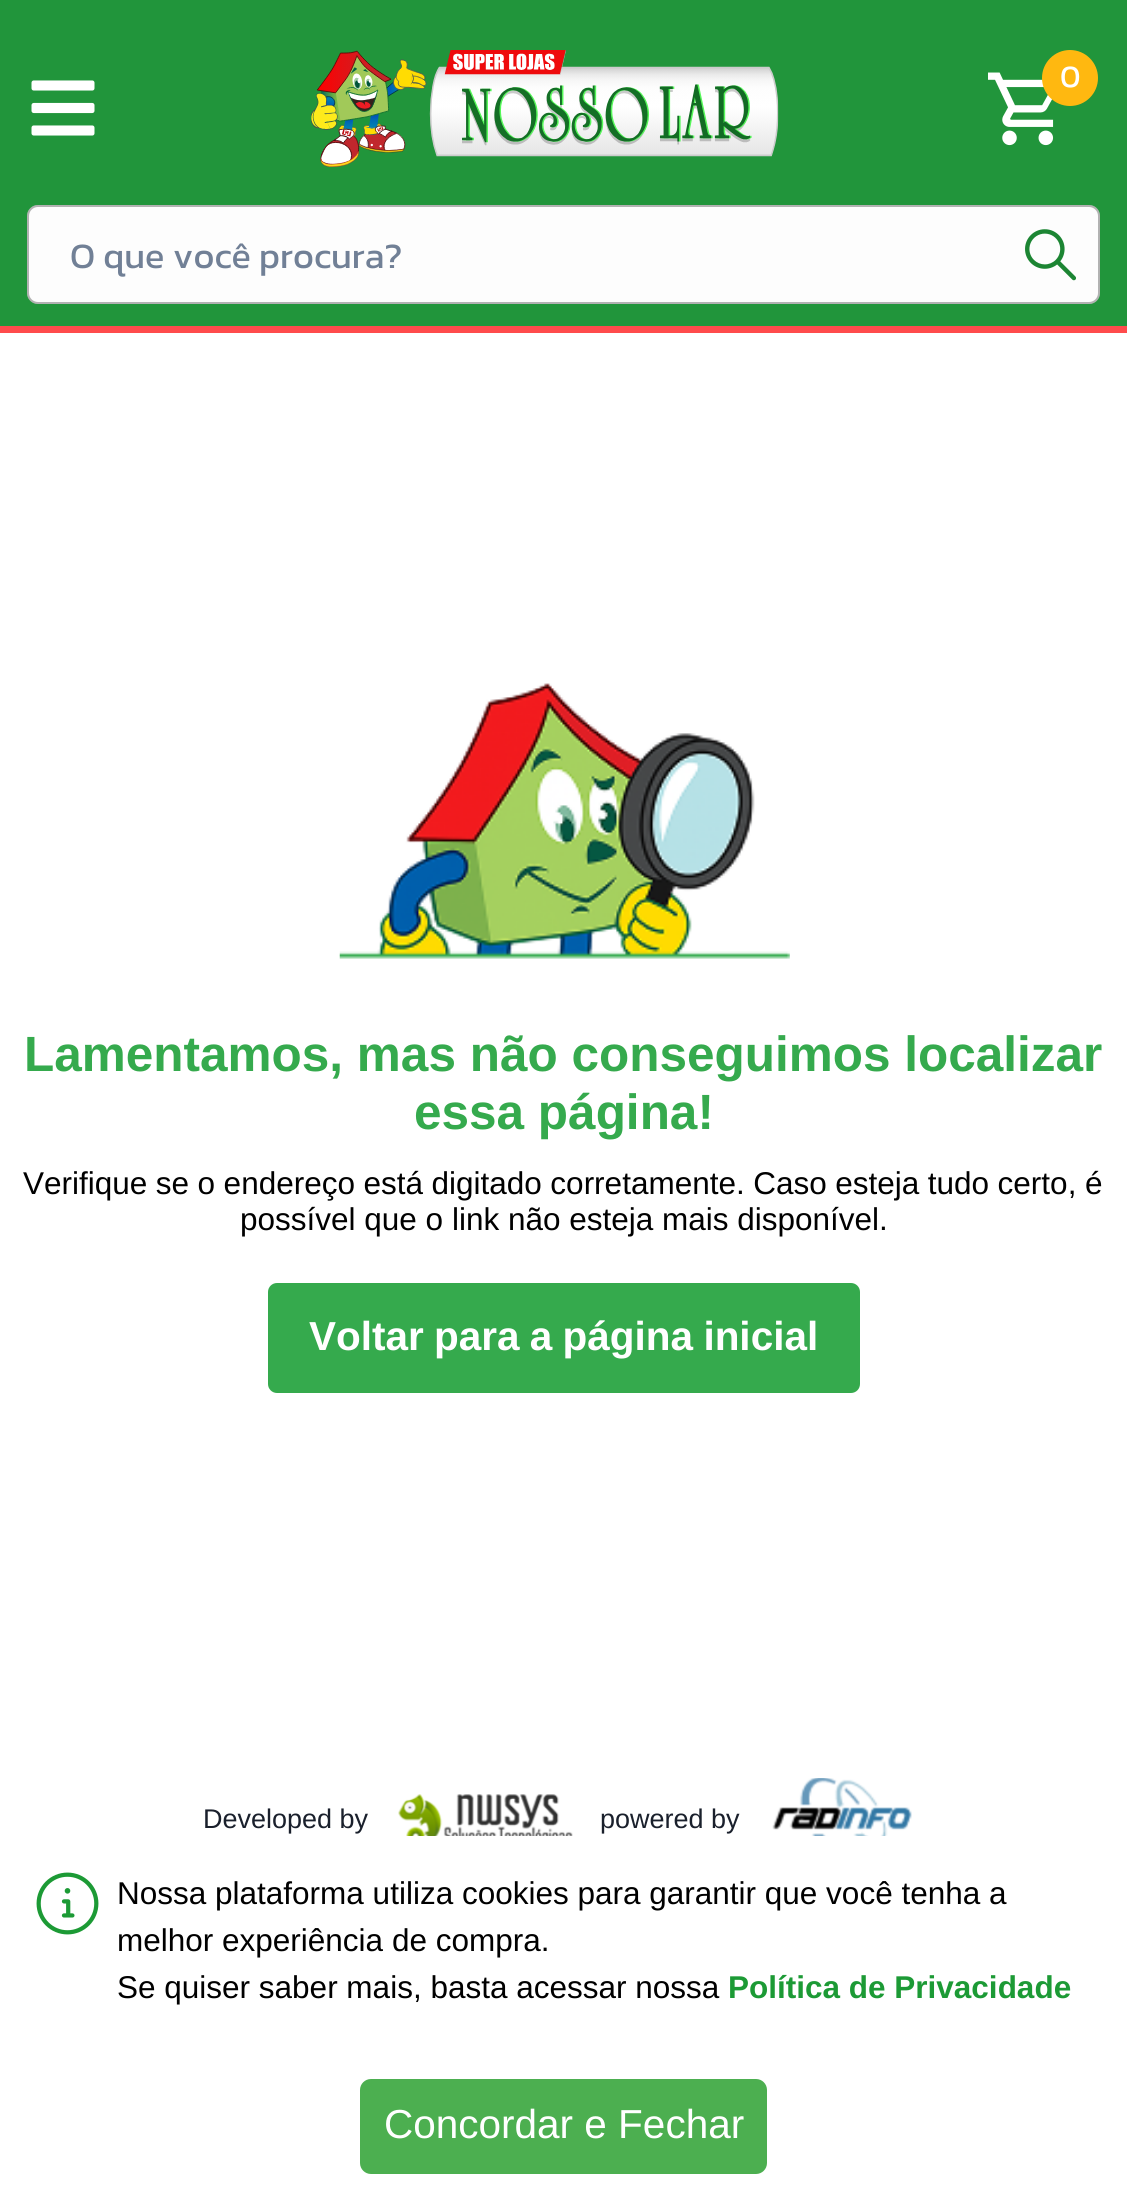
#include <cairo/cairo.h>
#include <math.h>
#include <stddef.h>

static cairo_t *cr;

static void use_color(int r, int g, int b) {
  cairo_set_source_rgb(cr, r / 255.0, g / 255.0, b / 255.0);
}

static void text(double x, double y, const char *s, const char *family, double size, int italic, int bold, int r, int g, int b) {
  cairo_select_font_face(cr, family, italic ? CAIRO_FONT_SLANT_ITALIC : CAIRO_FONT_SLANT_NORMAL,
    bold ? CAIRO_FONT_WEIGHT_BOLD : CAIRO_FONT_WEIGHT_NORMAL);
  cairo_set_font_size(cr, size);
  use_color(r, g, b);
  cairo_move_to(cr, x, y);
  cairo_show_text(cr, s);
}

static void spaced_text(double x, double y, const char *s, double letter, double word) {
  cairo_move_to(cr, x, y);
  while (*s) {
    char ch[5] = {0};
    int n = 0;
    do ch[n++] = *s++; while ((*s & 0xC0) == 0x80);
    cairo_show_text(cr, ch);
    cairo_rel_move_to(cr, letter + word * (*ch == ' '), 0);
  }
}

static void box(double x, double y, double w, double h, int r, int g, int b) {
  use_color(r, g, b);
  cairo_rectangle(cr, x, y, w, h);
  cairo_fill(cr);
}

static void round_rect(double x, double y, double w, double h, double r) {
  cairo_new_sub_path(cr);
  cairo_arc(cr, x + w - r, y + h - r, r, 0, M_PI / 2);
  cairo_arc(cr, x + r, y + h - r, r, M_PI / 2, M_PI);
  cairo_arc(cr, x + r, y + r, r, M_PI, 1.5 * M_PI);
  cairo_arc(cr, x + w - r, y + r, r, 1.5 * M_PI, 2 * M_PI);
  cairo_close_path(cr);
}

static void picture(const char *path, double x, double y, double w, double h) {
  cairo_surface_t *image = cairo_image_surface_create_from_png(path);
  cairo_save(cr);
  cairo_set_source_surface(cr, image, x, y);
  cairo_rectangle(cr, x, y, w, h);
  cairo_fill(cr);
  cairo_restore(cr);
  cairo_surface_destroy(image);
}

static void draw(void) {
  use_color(255, 255, 255);
  cairo_paint(cr);
  box(0, 0, 1127, 326, 33, 149, 59);
  box(0, 326, 1127, 7, 255, 75, 76);
  picture("img_01.png", 311, 50, 468, 117);
  picture("img_02.png", 988, 72, 66, 74);
  use_color(255, 184, 16);
  cairo_arc(cr, 1070, 78, 28, 0, 2 * M_PI);
  cairo_fill(cr);
  picture("img_03.png", 31, 80, 64, 56);
  use_color(253, 253, 253);
  round_rect(27, 205, 1073, 99, 11);
  cairo_fill(cr);
  round_rect(28, 206, 1071, 97, 10);
  cairo_set_source_rgba(cr, 0, 0, 0, 0.3);
  cairo_stroke(cr);
  picture("img_04.png", 1025, 229, 51, 52);
  picture("img_05.png", 339, 683, 451, 276);
  use_color(53, 170, 77);
  round_rect(268, 1283, 592, 110, 9);
  cairo_fill(cr);
  picture("img_06.png", 398, 1794, 175, 42);
  picture("img_07.png", 772, 1778, 140, 58);
  picture("img_08.png", 36, 1872, 63, 63);
  use_color(76, 175, 80);
  round_rect(360, 2079, 407, 95, 11);
  cairo_fill(cr);
  text(1060, 87, "0", "Kanit", 31.5, 0, 0, 255, 255, 255);
  text(70, 268, "O que você procura?", "Kanit", 36, 0, 0, 113, 128, 150);
  text(24, 1071, "Lamentamos, mas não conseguimos localizar", "Liberation Sans", 49.5, 0, 1, 53, 170, 77);
  text(414, 1129, "essa página!", "Liberation Sans", 49.5, 0, 1, 53, 170, 77);
  cairo_select_font_face(cr, "Liberation Sans", CAIRO_FONT_SLANT_NORMAL, CAIRO_FONT_WEIGHT_NORMAL);
  cairo_set_font_size(cr, 31.5);
  use_color(0, 0, 0);
  spaced_text(23, 1194, "Verifique se o endereço está digitado corretamente. Caso esteja tudo certo, é", 0, -0.25);
  text(240, 1230, "possível que o link não esteja mais disponível.", "Liberation Sans", 31.5, 0, 0, 0, 0, 0);
  cairo_select_font_face(cr, "Liberation Sans", CAIRO_FONT_SLANT_NORMAL, CAIRO_FONT_WEIGHT_BOLD);
  cairo_set_font_size(cr, 40.5);
  use_color(255, 255, 255);
  spaced_text(309, 1350, "Voltar para a página inicial", 0, -1);
  text(203, 1828, "Developed by", "Liberation Sans", 27, 0, 0, 26, 32, 44);
  text(600, 1828, "powered by", "Liberation Sans", 27, 0, 0, 26, 32, 44);
  text(117, 1904, "Nossa plataforma utiliza cookies para garantir que você tenha a", "Liberation Sans", 31.5, 0, 0, 0, 0, 0);
  text(117, 1951, "melhor experiência de compra.", "Liberation Sans", 31.5, 0, 0, 0, 0, 0);
  text(117, 1998, "Se quiser saber mais, basta acessar nossa", "Liberation Sans", 31.5, 0, 0, 0, 0, 0);
  text(728, 1998, "Política de Privacidade", "Liberation Sans", 31.5, 0, 1, 28, 154, 53);
  text(384, 2138, "Concordar e Fechar", "Liberation Sans", 40.5, 0, 0, 255, 255, 255);
}

int main(void) {
  cairo_surface_t *surface = cairo_image_surface_create(CAIRO_FORMAT_RGB24, 1127, 2206);
  cr = cairo_create(surface);
  cairo_font_options_t *options = cairo_font_options_create();
  cairo_font_options_set_hint_metrics(options, CAIRO_HINT_METRICS_OFF);
  cairo_font_options_set_hint_style(options, CAIRO_HINT_STYLE_NONE);
  cairo_set_font_options(cr, options);
  cairo_set_miter_limit(cr, 4);
  draw();
  cairo_surface_write_to_png(surface, "out.png");
  cairo_font_options_destroy(options);
  cairo_destroy(cr);
  cairo_surface_destroy(surface);
  return 0;
}
